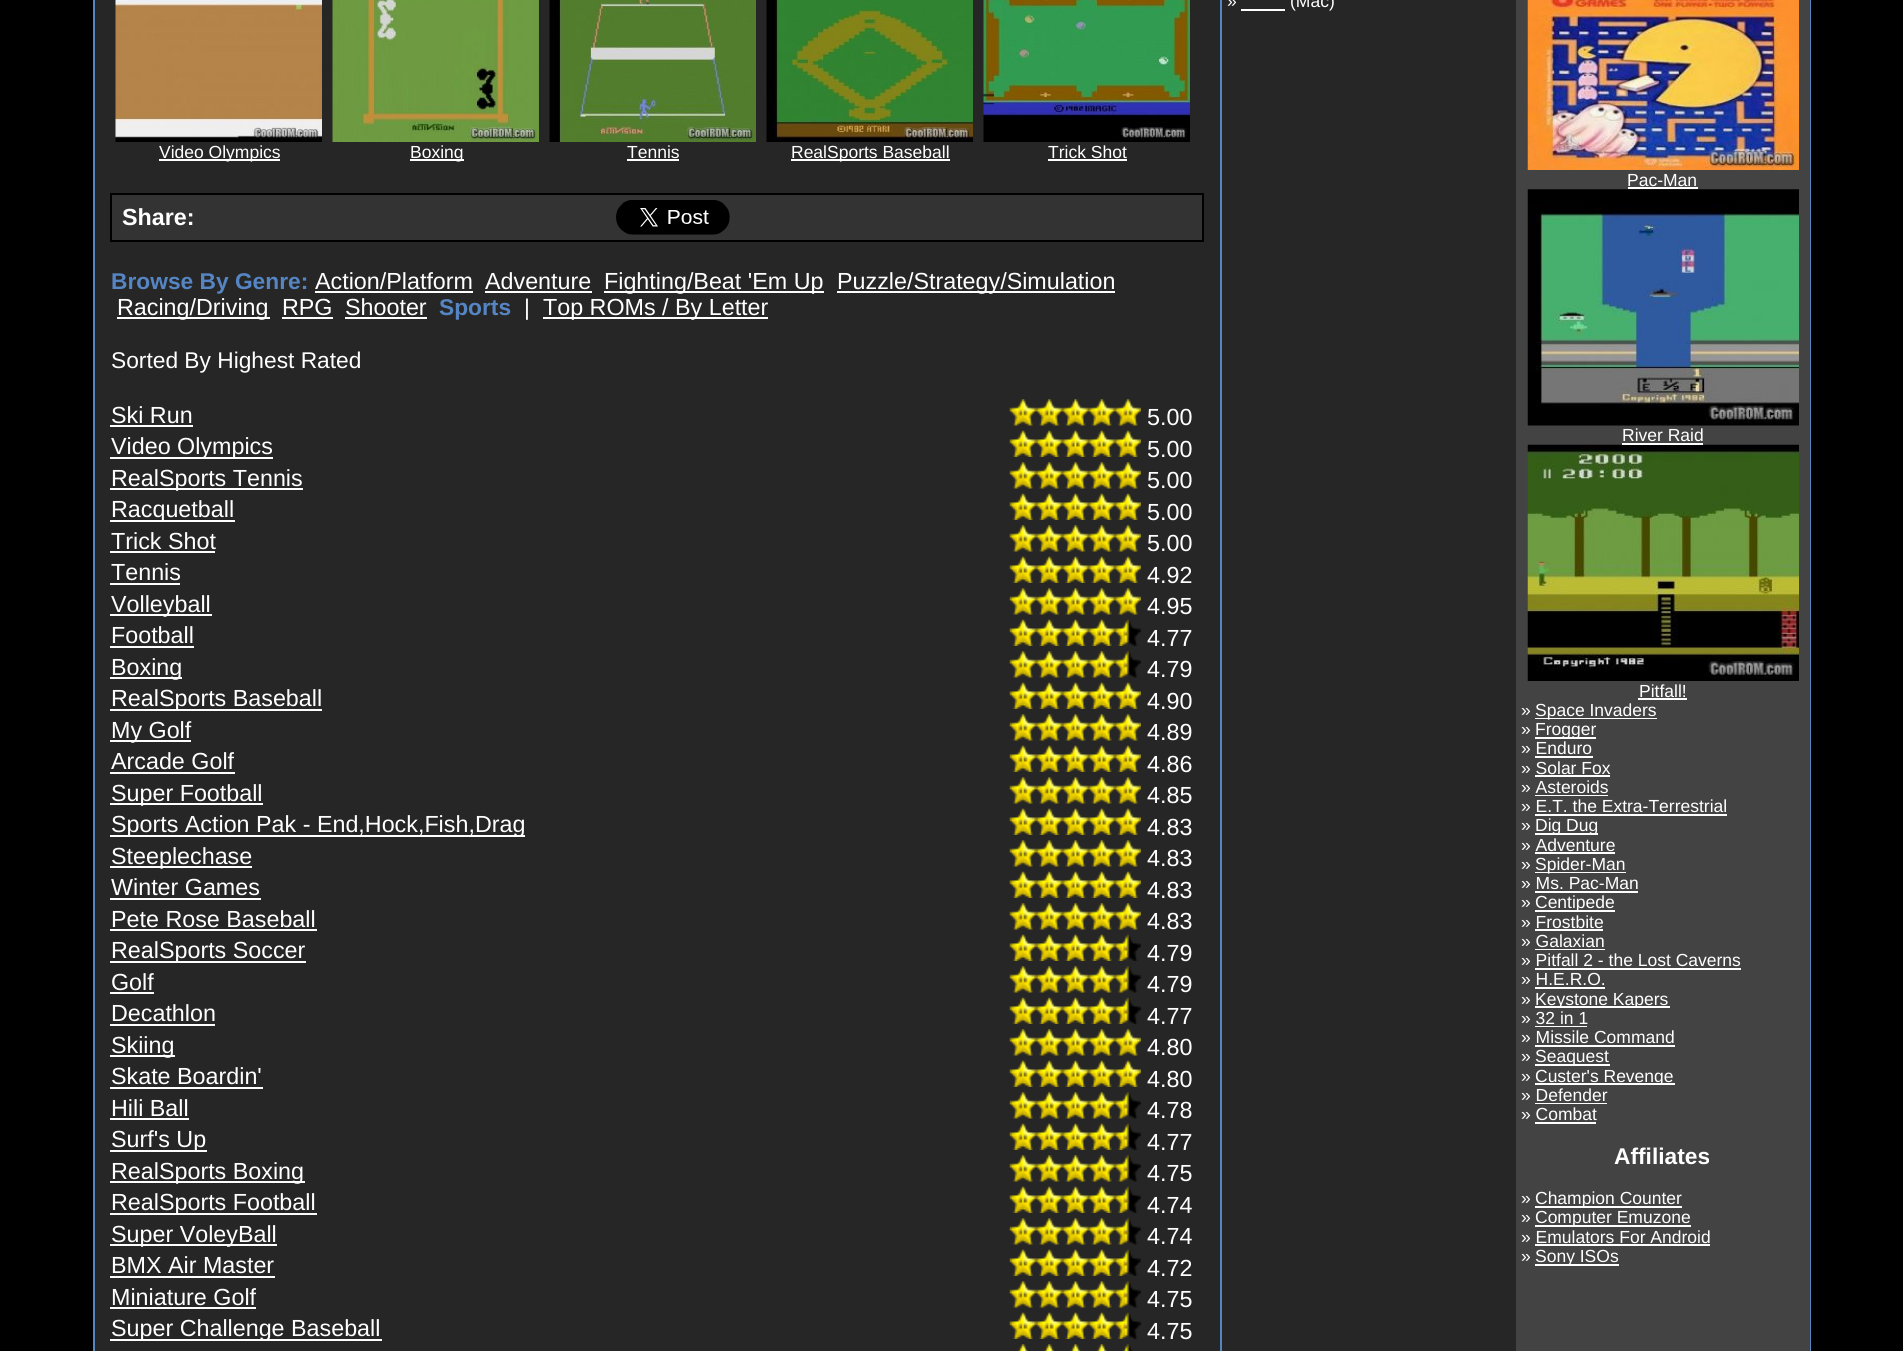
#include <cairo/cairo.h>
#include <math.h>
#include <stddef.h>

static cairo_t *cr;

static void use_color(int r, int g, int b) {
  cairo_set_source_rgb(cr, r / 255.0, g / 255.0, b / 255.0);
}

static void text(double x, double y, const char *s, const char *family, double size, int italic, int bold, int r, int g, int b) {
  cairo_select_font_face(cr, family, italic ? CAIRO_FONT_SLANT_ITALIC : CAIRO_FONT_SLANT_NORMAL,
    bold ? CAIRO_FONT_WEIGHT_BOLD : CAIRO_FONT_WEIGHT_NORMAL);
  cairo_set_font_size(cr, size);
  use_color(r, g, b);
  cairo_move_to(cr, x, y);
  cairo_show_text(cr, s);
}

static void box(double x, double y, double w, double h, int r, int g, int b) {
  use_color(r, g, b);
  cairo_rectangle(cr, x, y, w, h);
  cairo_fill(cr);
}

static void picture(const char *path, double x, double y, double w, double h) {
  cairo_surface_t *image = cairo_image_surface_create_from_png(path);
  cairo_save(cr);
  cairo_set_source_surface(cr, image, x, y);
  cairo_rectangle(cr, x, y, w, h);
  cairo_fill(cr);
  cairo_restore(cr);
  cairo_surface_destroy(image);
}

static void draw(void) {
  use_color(0, 0, 0);
  cairo_paint(cr);
  box(93, 0, 1718, 1351, 86, 133, 196);
  box(95, 0, 1125, 1351, 38, 38, 38);
  picture("img_01.png", 115, 0, 207, 142);
  box(159, 159, 121, 2, 255, 255, 255);
  picture("img_02.png", 332, 0, 207, 142);
  box(410, 159, 54, 2, 255, 255, 255);
  picture("img_03.png", 549, 0, 207, 142);
  box(627, 159, 52, 2, 255, 255, 255);
  picture("img_04.png", 766, 0, 207, 142);
  box(791, 159, 159, 2, 255, 255, 255);
  picture("img_05.png", 983, 0, 207, 142);
  box(1048, 159, 79, 2, 255, 255, 255);
  use_color(51, 51, 51);
  cairo_rectangle(cr, 111, 194, 1092, 47);
  cairo_fill_preserve(cr);
  use_color(0, 0, 0);
  cairo_stroke(cr);
  picture("img_06.png", 616, 200, 114, 35);
  box(315, 291, 158, 2, 255, 255, 255);
  box(485, 291, 107, 2, 255, 255, 255);
  box(604, 291, 220, 2, 255, 255, 255);
  box(837, 291, 278, 2, 255, 255, 255);
  box(117, 317, 153, 2, 255, 255, 255);
  box(282, 317, 51, 2, 255, 255, 255);
  box(345, 317, 82, 2, 255, 255, 255);
  box(543, 317, 225, 2, 255, 255, 255);
  box(110, 425, 83, 2, 255, 255, 255);
  picture("img_07.png", 1009, 399, 27, 27);
  picture("img_08.png", 1036, 399, 27, 27);
  picture("img_09.png", 1062, 399, 27, 27);
  picture("img_10.png", 1088, 399, 27, 27);
  picture("img_11.png", 1114, 399, 27, 27);
  box(110, 457, 163, 2, 255, 255, 255);
  picture("img_12.png", 1009, 430, 27, 27);
  picture("img_13.png", 1036, 430, 27, 27);
  picture("img_14.png", 1062, 430, 27, 27);
  picture("img_15.png", 1088, 430, 27, 27);
  picture("img_16.png", 1114, 430, 27, 27);
  box(110, 488, 193, 2, 255, 255, 255);
  picture("img_07.png", 1009, 462, 27, 27);
  picture("img_08.png", 1036, 462, 27, 27);
  picture("img_09.png", 1062, 462, 27, 27);
  picture("img_10.png", 1088, 462, 27, 27);
  picture("img_11.png", 1114, 462, 27, 27);
  box(110, 520, 125, 2, 255, 255, 255);
  picture("img_12.png", 1009, 493, 27, 27);
  picture("img_13.png", 1036, 493, 27, 27);
  picture("img_14.png", 1062, 493, 27, 27);
  picture("img_15.png", 1088, 493, 27, 27);
  picture("img_16.png", 1114, 493, 27, 27);
  box(110, 551, 105, 2, 255, 255, 255);
  picture("img_07.png", 1009, 525, 27, 27);
  picture("img_08.png", 1036, 525, 27, 27);
  picture("img_09.png", 1062, 525, 27, 27);
  picture("img_10.png", 1088, 525, 27, 27);
  picture("img_11.png", 1114, 525, 27, 27);
  box(110, 583, 70, 2, 255, 255, 255);
  picture("img_12.png", 1009, 556, 27, 27);
  picture("img_13.png", 1036, 556, 27, 27);
  picture("img_14.png", 1062, 556, 27, 27);
  picture("img_15.png", 1088, 556, 27, 27);
  picture("img_16.png", 1114, 556, 27, 27);
  box(110, 614, 102, 2, 255, 255, 255);
  picture("img_07.png", 1009, 588, 27, 27);
  picture("img_08.png", 1036, 588, 27, 27);
  picture("img_09.png", 1062, 588, 27, 27);
  picture("img_10.png", 1088, 588, 27, 27);
  picture("img_11.png", 1114, 588, 27, 27);
  box(110, 646, 84, 2, 255, 255, 255);
  picture("img_12.png", 1009, 619, 27, 27);
  picture("img_13.png", 1036, 619, 27, 27);
  picture("img_14.png", 1062, 619, 27, 27);
  picture("img_15.png", 1088, 619, 27, 27);
  picture("img_17.png", 1114, 619, 27, 27);
  box(110, 677, 72, 2, 255, 255, 255);
  picture("img_07.png", 1009, 651, 27, 27);
  picture("img_08.png", 1036, 651, 27, 27);
  picture("img_09.png", 1062, 651, 27, 27);
  picture("img_10.png", 1088, 651, 27, 27);
  picture("img_18.png", 1114, 651, 27, 27);
  box(110, 709, 212, 2, 255, 255, 255);
  picture("img_12.png", 1009, 682, 27, 27);
  picture("img_13.png", 1036, 682, 27, 27);
  picture("img_14.png", 1062, 682, 27, 27);
  picture("img_15.png", 1088, 682, 27, 27);
  picture("img_16.png", 1114, 682, 27, 27);
  box(110, 740, 81, 2, 255, 255, 255);
  picture("img_07.png", 1009, 714, 27, 27);
  picture("img_08.png", 1036, 714, 27, 27);
  picture("img_09.png", 1062, 714, 27, 27);
  picture("img_10.png", 1088, 714, 27, 27);
  picture("img_11.png", 1114, 714, 27, 27);
  box(110, 772, 125, 2, 255, 255, 255);
  picture("img_12.png", 1009, 745, 27, 27);
  picture("img_13.png", 1036, 745, 27, 27);
  picture("img_14.png", 1062, 745, 27, 27);
  picture("img_15.png", 1088, 745, 27, 27);
  picture("img_16.png", 1114, 745, 27, 27);
  box(110, 803, 153, 2, 255, 255, 255);
  picture("img_07.png", 1009, 777, 27, 27);
  picture("img_08.png", 1036, 777, 27, 27);
  picture("img_09.png", 1062, 777, 27, 27);
  picture("img_10.png", 1088, 777, 27, 27);
  picture("img_11.png", 1114, 777, 27, 27);
  box(110, 835, 415, 2, 255, 255, 255);
  picture("img_12.png", 1009, 808, 27, 27);
  picture("img_13.png", 1036, 808, 27, 27);
  picture("img_14.png", 1062, 808, 27, 27);
  picture("img_15.png", 1088, 808, 27, 27);
  picture("img_16.png", 1114, 808, 27, 27);
  box(110, 866, 142, 2, 255, 255, 255);
  picture("img_07.png", 1009, 840, 27, 27);
  picture("img_08.png", 1036, 840, 27, 27);
  picture("img_09.png", 1062, 840, 27, 27);
  picture("img_10.png", 1088, 840, 27, 27);
  picture("img_11.png", 1114, 840, 27, 27);
  box(110, 898, 151, 2, 255, 255, 255);
  picture("img_12.png", 1009, 871, 27, 27);
  picture("img_13.png", 1036, 871, 27, 27);
  picture("img_14.png", 1062, 871, 27, 27);
  picture("img_15.png", 1088, 871, 27, 27);
  picture("img_16.png", 1114, 871, 27, 27);
  box(110, 929, 207, 2, 255, 255, 255);
  picture("img_07.png", 1009, 903, 27, 27);
  picture("img_08.png", 1036, 903, 27, 27);
  picture("img_09.png", 1062, 903, 27, 27);
  picture("img_10.png", 1088, 903, 27, 27);
  picture("img_11.png", 1114, 903, 27, 27);
  box(110, 961, 196, 2, 255, 255, 255);
  picture("img_12.png", 1009, 934, 27, 27);
  picture("img_13.png", 1036, 934, 27, 27);
  picture("img_14.png", 1062, 934, 27, 27);
  picture("img_15.png", 1088, 934, 27, 27);
  picture("img_17.png", 1114, 934, 27, 27);
  box(110, 992, 44, 2, 255, 255, 255);
  picture("img_07.png", 1009, 966, 27, 27);
  picture("img_08.png", 1036, 966, 27, 27);
  picture("img_09.png", 1062, 966, 27, 27);
  picture("img_10.png", 1088, 966, 27, 27);
  picture("img_18.png", 1114, 966, 27, 27);
  box(110, 1024, 105, 2, 255, 255, 255);
  picture("img_12.png", 1009, 997, 27, 27);
  picture("img_13.png", 1036, 997, 27, 27);
  picture("img_14.png", 1062, 997, 27, 27);
  picture("img_15.png", 1088, 997, 27, 27);
  picture("img_17.png", 1114, 997, 27, 27);
  box(110, 1055, 65, 2, 255, 255, 255);
  picture("img_07.png", 1009, 1029, 27, 27);
  picture("img_08.png", 1036, 1029, 27, 27);
  picture("img_09.png", 1062, 1029, 27, 27);
  picture("img_10.png", 1088, 1029, 27, 27);
  picture("img_11.png", 1114, 1029, 27, 27);
  box(110, 1087, 153, 2, 255, 255, 255);
  picture("img_12.png", 1009, 1060, 27, 27);
  picture("img_13.png", 1036, 1060, 27, 27);
  picture("img_14.png", 1062, 1060, 27, 27);
  picture("img_15.png", 1088, 1060, 27, 27);
  picture("img_16.png", 1114, 1060, 27, 27);
  box(110, 1118, 79, 2, 255, 255, 255);
  picture("img_07.png", 1009, 1092, 27, 27);
  picture("img_08.png", 1036, 1092, 27, 27);
  picture("img_09.png", 1062, 1092, 27, 27);
  picture("img_10.png", 1088, 1092, 27, 27);
  picture("img_18.png", 1114, 1092, 27, 27);
  box(110, 1150, 97, 2, 255, 255, 255);
  picture("img_12.png", 1009, 1123, 27, 27);
  picture("img_13.png", 1036, 1123, 27, 27);
  picture("img_14.png", 1062, 1123, 27, 27);
  picture("img_15.png", 1088, 1123, 27, 27);
  picture("img_17.png", 1114, 1123, 27, 27);
  box(110, 1181, 195, 2, 255, 255, 255);
  picture("img_07.png", 1009, 1155, 27, 27);
  picture("img_08.png", 1036, 1155, 27, 27);
  picture("img_09.png", 1062, 1155, 27, 27);
  picture("img_10.png", 1088, 1155, 27, 27);
  picture("img_18.png", 1114, 1155, 27, 27);
  box(110, 1213, 207, 2, 255, 255, 255);
  picture("img_12.png", 1009, 1186, 27, 27);
  picture("img_13.png", 1036, 1186, 27, 27);
  picture("img_14.png", 1062, 1186, 27, 27);
  picture("img_15.png", 1088, 1186, 27, 27);
  picture("img_17.png", 1114, 1186, 27, 27);
  box(110, 1244, 167, 2, 255, 255, 255);
  picture("img_07.png", 1009, 1218, 27, 27);
  picture("img_08.png", 1036, 1218, 27, 27);
  picture("img_09.png", 1062, 1218, 27, 27);
  picture("img_10.png", 1088, 1218, 27, 27);
  picture("img_18.png", 1114, 1218, 27, 27);
  box(110, 1276, 165, 2, 255, 255, 255);
  picture("img_12.png", 1009, 1249, 27, 27);
  picture("img_13.png", 1036, 1249, 27, 27);
  picture("img_14.png", 1062, 1249, 27, 27);
  picture("img_15.png", 1088, 1249, 27, 27);
  picture("img_17.png", 1114, 1249, 27, 27);
  box(110, 1307, 146, 2, 255, 255, 255);
  picture("img_07.png", 1009, 1281, 27, 27);
  picture("img_08.png", 1036, 1281, 27, 27);
  picture("img_09.png", 1062, 1281, 27, 27);
  picture("img_10.png", 1088, 1281, 27, 27);
  picture("img_18.png", 1114, 1281, 27, 27);
  box(110, 1339, 272, 2, 255, 255, 255);
  picture("img_12.png", 1009, 1312, 27, 27);
  picture("img_13.png", 1036, 1312, 27, 27);
  picture("img_14.png", 1062, 1312, 27, 27);
  picture("img_15.png", 1088, 1312, 27, 27);
  picture("img_17.png", 1114, 1312, 27, 27);
  picture("img_19.png", 1018, 1344, 10, 7);
  picture("img_20.png", 1044, 1344, 10, 7);
  picture("img_21.png", 1070, 1344, 11, 7);
  picture("img_22.png", 1096, 1344, 11, 7);
  picture("img_23.png", 1123, 1344, 10, 7);
  box(1222, 0, 294, 1351, 38, 38, 38);
  box(1241, 9, 44, 2, 255, 255, 255);
  box(1516, 0, 294, 1351, 67, 67, 67);
  picture("img_24.png", 1527, 0, 272, 170);
  box(1628, 187, 70, 2, 255, 255, 255);
  picture("img_25.png", 1527, 189, 272, 237);
  picture("img_26.png", 1527, 444, 272, 237);
  box(1622, 443, 81, 2, 255, 255, 255);
  box(1638, 698, 49, 2, 255, 255, 255);
  box(1535, 718, 122, 1, 255, 255, 255);
  box(1535, 737, 61, 2, 255, 255, 255);
  box(1535, 756, 58, 2, 255, 255, 255);
  box(1535, 775, 75, 2, 255, 255, 255);
  box(1535, 795, 73, 1, 255, 255, 255);
  box(1535, 814, 192, 2, 255, 255, 255);
  box(1535, 833, 63, 2, 255, 255, 255);
  box(1535, 852, 80, 2, 255, 255, 255);
  box(1535, 872, 91, 1, 255, 255, 255);
  box(1535, 891, 103, 2, 255, 255, 255);
  box(1535, 910, 80, 2, 255, 255, 255);
  box(1535, 929, 68, 2, 255, 255, 255);
  box(1535, 949, 70, 1, 255, 255, 255);
  box(1535, 968, 206, 2, 255, 255, 255);
  box(1535, 987, 70, 2, 255, 255, 255);
  box(1535, 1006, 135, 2, 255, 255, 255);
  box(1535, 1026, 52, 1, 255, 255, 255);
  box(1535, 1045, 140, 2, 255, 255, 255);
  box(1535, 1064, 75, 2, 255, 255, 255);
  box(1535, 1083, 140, 2, 255, 255, 255);
  box(1535, 1103, 72, 1, 255, 255, 255);
  box(1535, 1122, 61, 2, 255, 255, 255);
  box(1535, 1206, 147, 2, 255, 255, 255);
  box(1535, 1225, 156, 2, 255, 255, 255);
  box(1535, 1244, 175, 2, 255, 255, 255);
  box(1535, 1264, 84, 2, 255, 255, 255);
  text(159, 158, "Video Olympics", "Liberation Sans", 17.5, 0, 0, 255, 255, 255);
  text(410, 158, "Boxing", "Liberation Sans", 17.5, 0, 0, 255, 255, 255);
  text(627, 158, "Tennis", "Liberation Sans", 17.5, 0, 0, 255, 255, 255);
  text(791, 158, "RealSports Baseball", "Liberation Sans", 17.5, 0, 0, 255, 255, 255);
  text(1048, 158, "Trick Shot", "Liberation Sans", 17.5, 0, 0, 255, 255, 255);
  text(122, 225, "Share:", "Liberation Sans", 23.3, 0, 1, 255, 255, 255);
  text(111, 289, "Browse By Genre:", "Liberation Sans", 22.75, 0, 1, 86, 133, 196);
  text(315, 289, "Action/Platform", "Liberation Sans", 23.3, 0, 0, 255, 255, 255);
  text(485, 289, "Adventure", "Liberation Sans", 23.3, 0, 0, 255, 255, 255);
  text(604, 289, "Fighting/Beat 'Em Up", "Liberation Sans", 23.3, 0, 0, 255, 255, 255);
  text(837, 289, "Puzzle/Strategy/Simulation", "Liberation Sans", 23.3, 0, 0, 255, 255, 255);
  text(117, 315, "Racing/Driving", "Liberation Sans", 23.3, 0, 0, 255, 255, 255);
  text(282, 315, "RPG", "Liberation Sans", 23.3, 0, 0, 255, 255, 255);
  text(345, 315, "Shooter", "Liberation Sans", 23.3, 0, 0, 255, 255, 255);
  text(439, 315, "Sports", "Liberation Sans", 22.75, 0, 1, 86, 133, 196);
  text(524, 315, "|", "Liberation Sans", 22.75, 0, 0, 255, 255, 255);
  text(543, 315, "Top ROMs / By Letter", "Liberation Sans", 23.3, 0, 0, 255, 255, 255);
  text(111, 368, "Sorted By Highest Rated", "Liberation Sans", 22.75, 0, 0, 255, 255, 255);
  text(111, 423, "Ski Run", "Liberation Sans", 23.3, 0, 0, 255, 255, 255);
  text(1147, 425, "5.00", "Liberation Sans", 23.3, 0, 0, 255, 255, 255);
  text(111, 454, "Video Olympics", "Liberation Sans", 23.3, 0, 0, 255, 255, 255);
  text(1147, 457, "5.00", "Liberation Sans", 23.3, 0, 0, 255, 255, 255);
  text(111, 486, "RealSports Tennis", "Liberation Sans", 23.3, 0, 0, 255, 255, 255);
  text(1147, 488, "5.00", "Liberation Sans", 23.3, 0, 0, 255, 255, 255);
  text(111, 517, "Racquetball", "Liberation Sans", 23.3, 0, 0, 255, 255, 255);
  text(1147, 520, "5.00", "Liberation Sans", 23.3, 0, 0, 255, 255, 255);
  text(111, 549, "Trick Shot", "Liberation Sans", 23.3, 0, 0, 255, 255, 255);
  text(1147, 551, "5.00", "Liberation Sans", 23.3, 0, 0, 255, 255, 255);
  text(111, 580, "Tennis", "Liberation Sans", 23.3, 0, 0, 255, 255, 255);
  text(1147, 583, "4.92", "Liberation Sans", 23.3, 0, 0, 255, 255, 255);
  text(111, 612, "Volleyball", "Liberation Sans", 23.3, 0, 0, 255, 255, 255);
  text(1147, 614, "4.95", "Liberation Sans", 23.3, 0, 0, 255, 255, 255);
  text(111, 643, "Football", "Liberation Sans", 23.3, 0, 0, 255, 255, 255);
  text(1147, 646, "4.77", "Liberation Sans", 23.3, 0, 0, 255, 255, 255);
  text(111, 675, "Boxing", "Liberation Sans", 23.3, 0, 0, 255, 255, 255);
  text(1147, 677, "4.79", "Liberation Sans", 23.3, 0, 0, 255, 255, 255);
  text(111, 706, "RealSports Baseball", "Liberation Sans", 23.3, 0, 0, 255, 255, 255);
  text(1147, 709, "4.90", "Liberation Sans", 23.3, 0, 0, 255, 255, 255);
  text(111, 738, "My Golf", "Liberation Sans", 23.3, 0, 0, 255, 255, 255);
  text(1147, 740, "4.89", "Liberation Sans", 23.3, 0, 0, 255, 255, 255);
  text(111, 769, "Arcade Golf", "Liberation Sans", 23.3, 0, 0, 255, 255, 255);
  text(1147, 772, "4.86", "Liberation Sans", 23.3, 0, 0, 255, 255, 255);
  text(111, 801, "Super Football", "Liberation Sans", 23.3, 0, 0, 255, 255, 255);
  text(1147, 803, "4.85", "Liberation Sans", 23.3, 0, 0, 255, 255, 255);
  text(111, 832, "Sports Action Pak - End,Hock,Fish,Drag", "Liberation Sans", 23.3, 0, 0, 255, 255, 255);
  text(1147, 835, "4.83", "Liberation Sans", 23.3, 0, 0, 255, 255, 255);
  text(111, 864, "Steeplechase", "Liberation Sans", 23.3, 0, 0, 255, 255, 255);
  text(1147, 866, "4.83", "Liberation Sans", 23.3, 0, 0, 255, 255, 255);
  text(111, 895, "Winter Games", "Liberation Sans", 23.3, 0, 0, 255, 255, 255);
  text(1147, 898, "4.83", "Liberation Sans", 23.3, 0, 0, 255, 255, 255);
  text(111, 927, "Pete Rose Baseball", "Liberation Sans", 23.3, 0, 0, 255, 255, 255);
  text(1147, 929, "4.83", "Liberation Sans", 23.3, 0, 0, 255, 255, 255);
  text(111, 958, "RealSports Soccer", "Liberation Sans", 23.3, 0, 0, 255, 255, 255);
  text(1147, 961, "4.79", "Liberation Sans", 23.3, 0, 0, 255, 255, 255);
  text(111, 990, "Golf", "Liberation Sans", 23.3, 0, 0, 255, 255, 255);
  text(1147, 992, "4.79", "Liberation Sans", 23.3, 0, 0, 255, 255, 255);
  text(111, 1021, "Decathlon", "Liberation Sans", 23.3, 0, 0, 255, 255, 255);
  text(1147, 1024, "4.77", "Liberation Sans", 23.3, 0, 0, 255, 255, 255);
  text(111, 1053, "Skiing", "Liberation Sans", 23.3, 0, 0, 255, 255, 255);
  text(1147, 1055, "4.80", "Liberation Sans", 23.3, 0, 0, 255, 255, 255);
  text(111, 1084, "Skate Boardin'", "Liberation Sans", 23.3, 0, 0, 255, 255, 255);
  text(1147, 1087, "4.80", "Liberation Sans", 23.3, 0, 0, 255, 255, 255);
  text(111, 1116, "Hili Ball", "Liberation Sans", 23.3, 0, 0, 255, 255, 255);
  text(1147, 1118, "4.78", "Liberation Sans", 23.3, 0, 0, 255, 255, 255);
  text(111, 1147, "Surf's Up", "Liberation Sans", 23.3, 0, 0, 255, 255, 255);
  text(1147, 1150, "4.77", "Liberation Sans", 23.3, 0, 0, 255, 255, 255);
  text(111, 1179, "RealSports Boxing", "Liberation Sans", 23.3, 0, 0, 255, 255, 255);
  text(1147, 1181, "4.75", "Liberation Sans", 23.3, 0, 0, 255, 255, 255);
  text(111, 1210, "RealSports Football", "Liberation Sans", 23.3, 0, 0, 255, 255, 255);
  text(1147, 1213, "4.74", "Liberation Sans", 23.3, 0, 0, 255, 255, 255);
  text(111, 1242, "Super VoleyBall", "Liberation Sans", 23.3, 0, 0, 255, 255, 255);
  text(1147, 1244, "4.74", "Liberation Sans", 23.3, 0, 0, 255, 255, 255);
  text(111, 1273, "BMX Air Master", "Liberation Sans", 23.3, 0, 0, 255, 255, 255);
  text(1147, 1276, "4.72", "Liberation Sans", 23.3, 0, 0, 255, 255, 255);
  text(111, 1305, "Miniature Golf", "Liberation Sans", 23.3, 0, 0, 255, 255, 255);
  text(1147, 1307, "4.75", "Liberation Sans", 23.3, 0, 0, 255, 255, 255);
  text(111, 1336, "Super Challenge Baseball", "Liberation Sans", 23.3, 0, 0, 255, 255, 255);
  text(1147, 1339, "4.75", "Liberation Sans", 23.3, 0, 0, 255, 255, 255);
  text(1227, 7, "»", "Liberation Sans", 17.5, 0, 0, 255, 255, 255);
  text(1290, 7, "(Mac)", "Liberation Sans", 17.5, 0, 0, 255, 255, 255);
  text(1627, 186, "Pac-Man", "Liberation Sans", 17.5, 0, 0, 255, 255, 255);
  text(1622, 441, "River Raid", "Liberation Sans", 17.5, 0, 0, 255, 255, 255);
  text(1639, 697, "Pitfall!", "Liberation Sans", 17.5, 0, 0, 255, 255, 255);
  text(1521, 716, "»", "Liberation Sans", 17.5, 0, 0, 255, 255, 255);
  text(1535, 716, "Space Invaders", "Liberation Sans", 17.5, 0, 0, 255, 255, 255);
  text(1521, 735, "»", "Liberation Sans", 17.5, 0, 0, 255, 255, 255);
  text(1535, 735, "Frogger", "Liberation Sans", 17.5, 0, 0, 255, 255, 255);
  text(1521, 754, "» Enduro", "Liberation Sans", 17.5, 0, 0, 255, 255, 255);
  text(1521, 774, "» Solar Fox", "Liberation Sans", 17.5, 0, 0, 255, 255, 255);
  text(1521, 793, "» Asteroids", "Liberation Sans", 17.5, 0, 0, 255, 255, 255);
  text(1521, 812, "» E.T. the Extra-Terrestrial", "Liberation Sans", 17.5, 0, 0, 255, 255, 255);
  text(1521, 831, "»", "Liberation Sans", 17.5, 0, 0, 255, 255, 255);
  text(1535, 831, "Dig Dug", "Liberation Sans", 17.5, 0, 0, 255, 255, 255);
  text(1521, 851, "» Adventure", "Liberation Sans", 17.5, 0, 0, 255, 255, 255);
  text(1521, 870, "»", "Liberation Sans", 17.5, 0, 0, 255, 255, 255);
  text(1535, 870, "Spider-Man", "Liberation Sans", 17.5, 0, 0, 255, 255, 255);
  text(1521, 889, "» Ms. Pac-Man", "Liberation Sans", 17.5, 0, 0, 255, 255, 255);
  text(1521, 908, "»", "Liberation Sans", 17.5, 0, 0, 255, 255, 255);
  text(1535, 908, "Centipede", "Liberation Sans", 17.5, 0, 0, 255, 255, 255);
  text(1521, 928, "» Frostbite", "Liberation Sans", 17.5, 0, 0, 255, 255, 255);
  text(1521, 947, "» Galaxian", "Liberation Sans", 17.5, 0, 0, 255, 255, 255);
  text(1521, 966, "» Pitfall 2 - the Lost Caverns", "Liberation Sans", 17.5, 0, 0, 255, 255, 255);
  text(1521, 985, "» H.E.R.O.", "Liberation Sans", 17.5, 0, 0, 255, 255, 255);
  text(1521, 1005, "»", "Liberation Sans", 17.5, 0, 0, 255, 255, 255);
  cairo_save(cr);
  cairo_rectangle(cr, 1521, 989, 271, 19);
  cairo_clip(cr);
  text(1535, 1005, "Keystone Kapers", "Liberation Sans", 17.5, 0, 0, 255, 255, 255);
  cairo_restore(cr);
  text(1521, 1024, "» 32 in 1", "Liberation Sans", 17.5, 0, 0, 255, 255, 255);
  text(1521, 1043, "» Missile Command", "Liberation Sans", 17.5, 0, 0, 255, 255, 255);
  text(1521, 1062, "»", "Liberation Sans", 17.5, 0, 0, 255, 255, 255);
  text(1535, 1062, "Seaquest", "Liberation Sans", 17.5, 0, 0, 255, 255, 255);
  text(1521, 1082, "»", "Liberation Sans", 17.5, 0, 0, 255, 255, 255);
  cairo_save(cr);
  cairo_rectangle(cr, 1521, 1066, 271, 19);
  cairo_clip(cr);
  text(1535, 1082, "Custer's Revenge", "Liberation Sans", 17.5, 0, 0, 255, 255, 255);
  cairo_restore(cr);
  text(1521, 1101, "» Defender", "Liberation Sans", 17.5, 0, 0, 255, 255, 255);
  text(1521, 1120, "» Combat", "Liberation Sans", 17.5, 0, 0, 255, 255, 255);
  text(1614, 1164, "Affiliates", "Liberation Sans", 22.75, 0, 1, 255, 255, 255);
  text(1521, 1204, "»", "Liberation Sans", 17.5, 0, 0, 255, 255, 255);
  text(1535, 1204, "Champion Counter", "Liberation Sans", 17.5, 0, 0, 255, 255, 255);
  text(1521, 1223, "»", "Liberation Sans", 17.5, 0, 0, 255, 255, 255);
  text(1535, 1223, "Computer Emuzone", "Liberation Sans", 17.5, 0, 0, 255, 255, 255);
  text(1521, 1243, "» Emulators For Android", "Liberation Sans", 17.5, 0, 0, 255, 255, 255);
  text(1521, 1262, "»", "Liberation Sans", 17.5, 0, 0, 255, 255, 255);
  text(1535, 1262, "Sony ISOs", "Liberation Sans", 17.5, 0, 0, 255, 255, 255);
}

int main(void) {
  cairo_surface_t *surface = cairo_image_surface_create(CAIRO_FORMAT_RGB24, 1903, 1351);
  cr = cairo_create(surface);
  cairo_font_options_t *options = cairo_font_options_create();
  cairo_font_options_set_hint_metrics(options, CAIRO_HINT_METRICS_OFF);
  cairo_font_options_set_hint_style(options, CAIRO_HINT_STYLE_NONE);
  cairo_set_font_options(cr, options);
  cairo_set_miter_limit(cr, 4);
  draw();
  cairo_surface_write_to_png(surface, "out.png");
  cairo_font_options_destroy(options);
  cairo_destroy(cr);
  cairo_surface_destroy(surface);
  return 0;
}
